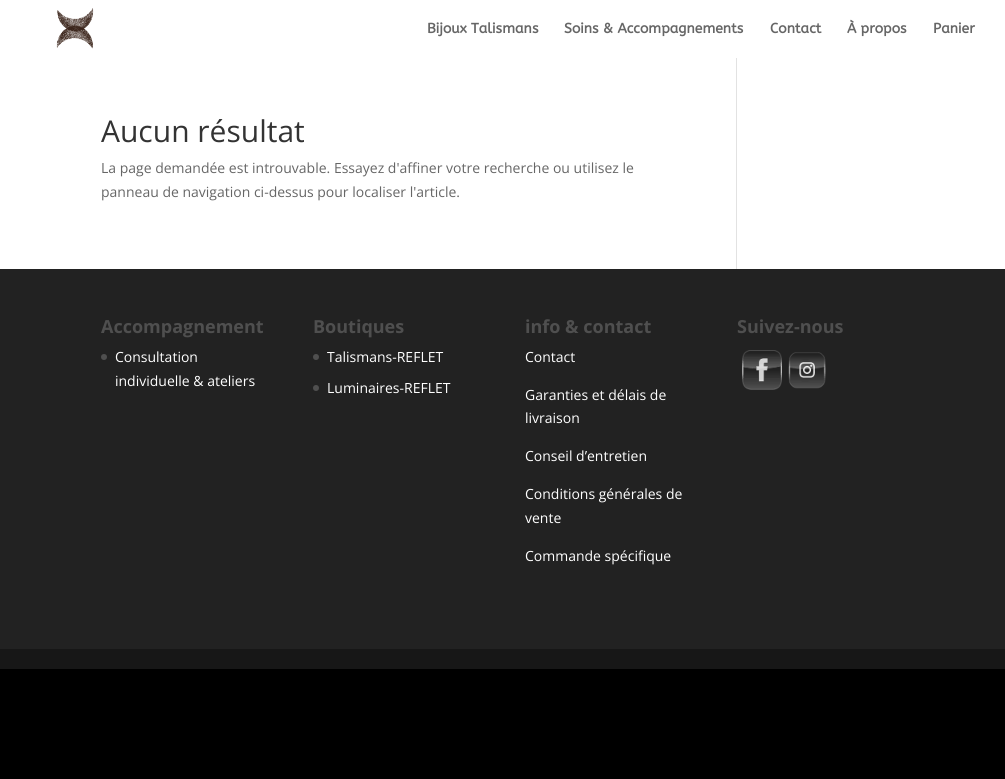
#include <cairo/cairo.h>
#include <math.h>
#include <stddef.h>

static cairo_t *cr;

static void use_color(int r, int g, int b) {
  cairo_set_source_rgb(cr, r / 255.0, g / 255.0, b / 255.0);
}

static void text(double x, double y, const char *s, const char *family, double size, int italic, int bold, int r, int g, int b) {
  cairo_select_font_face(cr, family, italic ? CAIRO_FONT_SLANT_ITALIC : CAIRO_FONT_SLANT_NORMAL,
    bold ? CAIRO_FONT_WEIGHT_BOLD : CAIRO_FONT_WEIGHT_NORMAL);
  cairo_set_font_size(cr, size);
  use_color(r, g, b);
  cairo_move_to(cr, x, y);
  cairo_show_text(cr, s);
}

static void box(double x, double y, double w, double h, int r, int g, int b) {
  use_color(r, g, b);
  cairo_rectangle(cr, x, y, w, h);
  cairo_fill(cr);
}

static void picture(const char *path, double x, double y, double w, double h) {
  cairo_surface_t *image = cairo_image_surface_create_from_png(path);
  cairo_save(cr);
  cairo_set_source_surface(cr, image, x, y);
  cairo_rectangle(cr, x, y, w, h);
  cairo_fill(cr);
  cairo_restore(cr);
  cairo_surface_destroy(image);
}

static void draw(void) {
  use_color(0, 0, 0);
  cairo_paint(cr);
  box(0, 0, 1005, 269, 255, 255, 255);
  picture("img_01.png", 56, 8, 38, 41);
  box(736, 58, 1, 211, 226, 226, 226);
  box(0, 269, 1005, 380, 34, 34, 34);
  use_color(79, 79, 79);
  cairo_arc(cr, 104, 357, 3, 0, 2 * M_PI);
  cairo_fill(cr);
  cairo_arc(cr, 316, 357, 3, 0, 2 * M_PI);
  cairo_fill(cr);
  cairo_arc(cr, 316, 388, 3, 0, 2 * M_PI);
  cairo_fill(cr);
  picture("img_02.png", 742, 350, 40, 40);
  picture("img_03.png", 788, 352, 38, 37);
  box(0, 649, 1005, 20, 23, 23, 23);
  text(427, 33, "Bijoux Talismans", "ABeeZee", 14, 0, 1, 102, 102, 102);
  text(564, 33, "Soins & Accompagnements", "ABeeZee", 14, 0, 1, 102, 102, 102);
  text(770, 33, "Contact", "ABeeZee", 14, 0, 1, 102, 102, 102);
  text(847, 33, "À propos", "ABeeZee", 14, 0, 1, 102, 102, 102);
  text(933, 33, "Panier", "ABeeZee", 14, 0, 1, 102, 102, 102);
  text(101, 142, "Aucun résultat", "Open Sans", 30, 0, 0, 51, 51, 51);
  text(101, 173, "La page demandée est introuvable. Essayez d'affiner votre recherche ou utilisez le", "Open Sans", 14, 0, 0, 102, 102, 102);
  text(101, 197, "panneau de navigation ci-dessus pour localiser l'article.", "Open Sans", 14, 0, 0, 102, 102, 102);
  text(101, 333, "Accompagnement", "Open Sans", 18, 0, 1, 79, 79, 79);
  text(115, 362, "Consultation", "Open Sans", 14, 0, 0, 255, 255, 255);
  text(115, 386, "individuelle & ateliers", "Open Sans", 14, 0, 0, 255, 255, 255);
  text(313, 333, "Boutiques", "Open Sans", 18, 0, 1, 79, 79, 79);
  text(327, 362, "Talismans-REFLET", "Open Sans", 14, 0, 0, 255, 255, 255);
  text(327, 393, "Luminaires-REFLET", "Open Sans", 14, 0, 0, 255, 255, 255);
  text(525, 333, "info & contact", "Open Sans", 18, 0, 1, 79, 79, 79);
  text(525, 362, "Contact", "Open Sans", 14, 0, 0, 255, 255, 255);
  text(525, 400, "Garanties et délais de", "Open Sans", 14, 0, 0, 255, 255, 255);
  text(525, 423, "livraison", "Open Sans", 14, 0, 0, 255, 255, 255);
  text(525, 461, "Conseil d’entretien", "Open Sans", 14, 0, 0, 255, 255, 255);
  text(525, 499, "Conditions générales de", "Open Sans", 14, 0, 0, 255, 255, 255);
  text(525, 523, "vente", "Open Sans", 14, 0, 0, 255, 255, 255);
  text(525, 561, "Commande spécifique", "Open Sans", 14, 0, 0, 255, 255, 255);
  text(737, 333, "Suivez-nous", "Open Sans", 18, 0, 1, 79, 79, 79);
}

int main(void) {
  cairo_surface_t *surface = cairo_image_surface_create(CAIRO_FORMAT_RGB24, 1005, 779);
  cr = cairo_create(surface);
  cairo_font_options_t *options = cairo_font_options_create();
  cairo_font_options_set_hint_metrics(options, CAIRO_HINT_METRICS_OFF);
  cairo_font_options_set_hint_style(options, CAIRO_HINT_STYLE_NONE);
  cairo_set_font_options(cr, options);
  cairo_set_miter_limit(cr, 4);
  draw();
  cairo_surface_write_to_png(surface, "out.png");
  cairo_font_options_destroy(options);
  cairo_destroy(cr);
  cairo_surface_destroy(surface);
  return 0;
}
